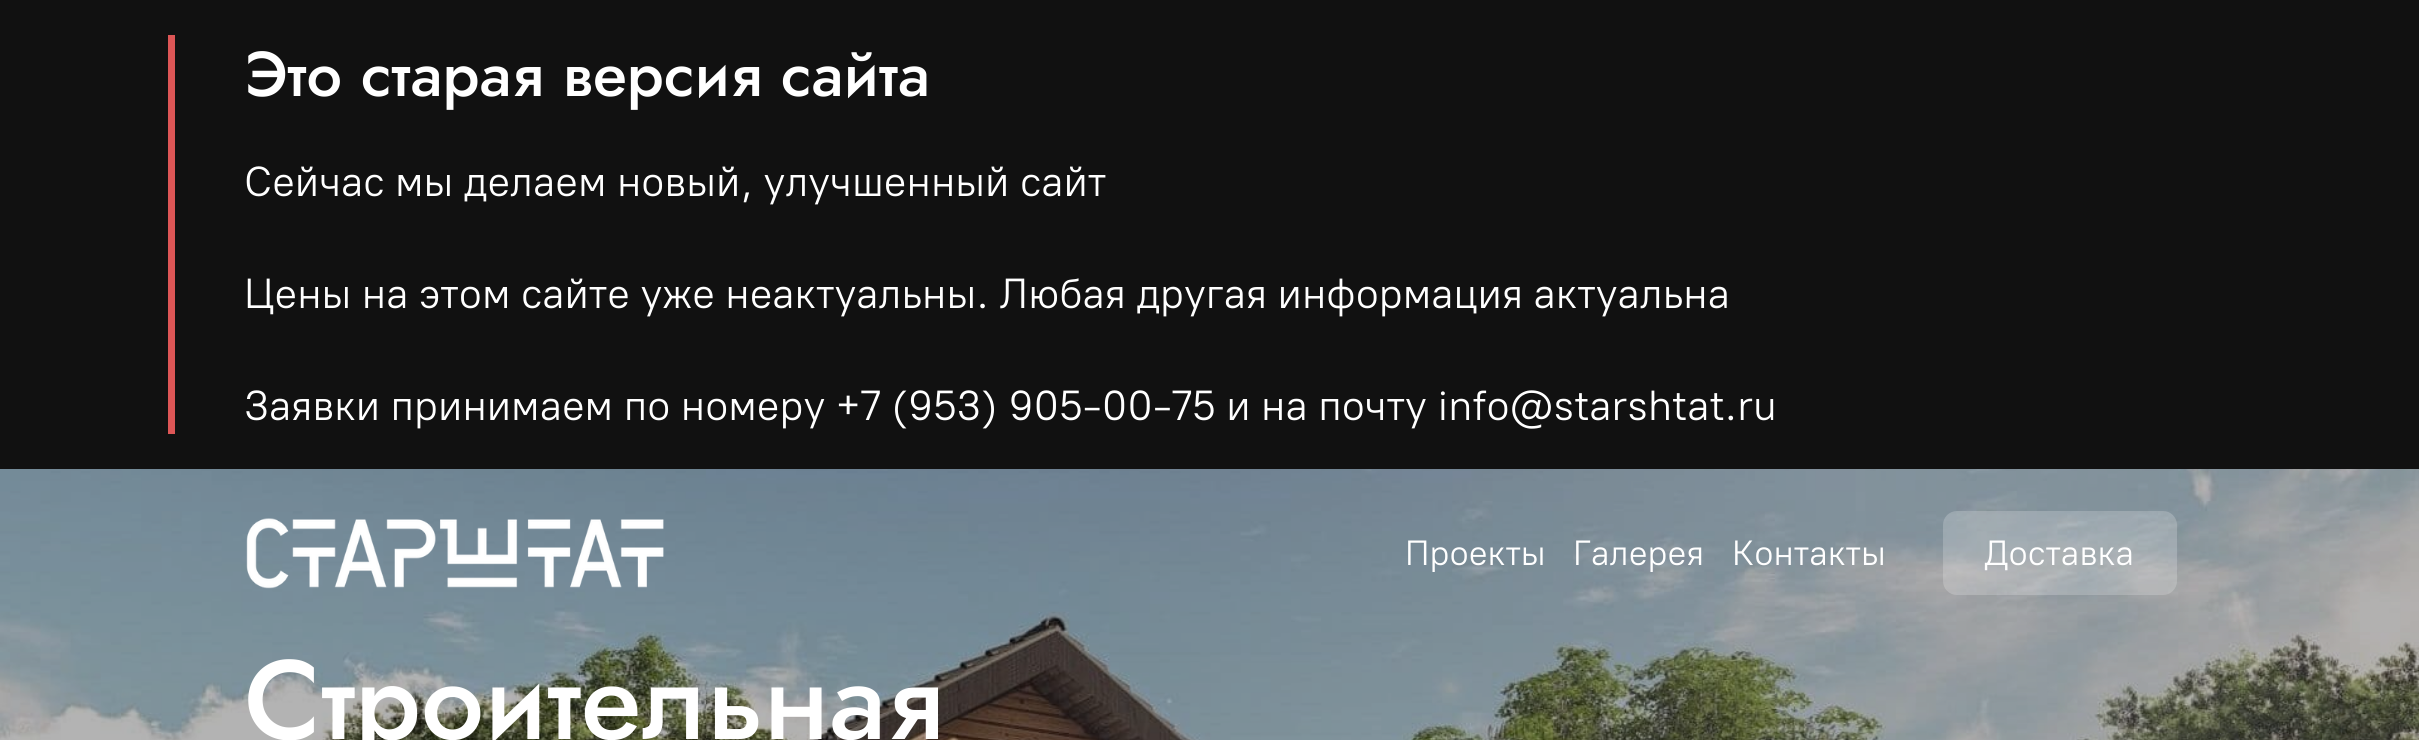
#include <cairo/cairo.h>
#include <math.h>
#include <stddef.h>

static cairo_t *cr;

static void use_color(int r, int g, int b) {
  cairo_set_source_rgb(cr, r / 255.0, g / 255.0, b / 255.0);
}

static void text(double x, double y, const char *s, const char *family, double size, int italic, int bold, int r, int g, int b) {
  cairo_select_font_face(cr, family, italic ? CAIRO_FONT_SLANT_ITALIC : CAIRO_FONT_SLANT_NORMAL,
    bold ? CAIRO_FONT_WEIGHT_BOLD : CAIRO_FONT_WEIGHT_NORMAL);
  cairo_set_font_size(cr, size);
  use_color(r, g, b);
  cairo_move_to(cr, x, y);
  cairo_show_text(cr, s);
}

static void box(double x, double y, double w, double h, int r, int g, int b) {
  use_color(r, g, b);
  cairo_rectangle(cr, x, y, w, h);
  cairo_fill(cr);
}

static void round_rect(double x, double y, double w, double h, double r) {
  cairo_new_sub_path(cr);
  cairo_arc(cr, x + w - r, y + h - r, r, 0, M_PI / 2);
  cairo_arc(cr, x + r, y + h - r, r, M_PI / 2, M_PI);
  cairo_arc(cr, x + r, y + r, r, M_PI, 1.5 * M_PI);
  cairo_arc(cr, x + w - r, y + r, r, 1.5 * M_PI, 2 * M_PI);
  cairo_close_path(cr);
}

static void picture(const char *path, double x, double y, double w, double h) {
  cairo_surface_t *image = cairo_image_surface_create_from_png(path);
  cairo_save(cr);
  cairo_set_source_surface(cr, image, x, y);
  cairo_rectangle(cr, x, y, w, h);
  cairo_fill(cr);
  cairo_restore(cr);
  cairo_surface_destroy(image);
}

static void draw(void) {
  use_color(17, 17, 17);
  cairo_paint(cr);
  box(168, 35, 7, 399, 221, 86, 86);
  picture("img_01.png", 0, 469, 2419, 271);
  picture("img_02.png", 246, 518, 418, 71);
  cairo_set_source_rgba(cr, 1, 1, 1, 0.2);
  round_rect(1943, 511, 234, 84, 14);
  cairo_fill(cr);
  text(244, 96, "Это старая версия сайта", "Jost Medium", 63, 0, 0, 255, 255, 255);
  text(244, 196, "Сейчас мы делаем новый, улучшенный сайт", "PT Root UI", 42, 0, 0, 255, 255, 255);
  text(244, 308, "Цены на этом сайте уже неактуальны. Любая другая информация актуальна", "PT Root UI", 42, 0, 0, 255, 255, 255);
  text(244, 420, "Заявки принимаем по номеру +7 (953) 905-00-75 и на почту info@starshtat.ru", "PT Root UI", 42, 0, 0, 255, 255, 255);
  text(1405, 565, "Проекты", "PT Root UI", 35, 0, 0, 255, 255, 255);
  text(1573, 565, "Галерея", "PT Root UI", 35, 0, 0, 255, 255, 255);
  text(1732, 565, "Контакты", "PT Root UI", 35, 0, 0, 255, 255, 255);
  text(1984, 565, "Доставка", "PT Root UI", 35, 0, 0, 255, 255, 255);
  text(244, 739, "Строительная", "Jost Medium", 112, 0, 0, 255, 255, 255);
}

int main(void) {
  cairo_surface_t *surface = cairo_image_surface_create(CAIRO_FORMAT_RGB24, 2419, 740);
  cr = cairo_create(surface);
  cairo_font_options_t *options = cairo_font_options_create();
  cairo_font_options_set_hint_metrics(options, CAIRO_HINT_METRICS_OFF);
  cairo_font_options_set_hint_style(options, CAIRO_HINT_STYLE_NONE);
  cairo_set_font_options(cr, options);
  cairo_set_miter_limit(cr, 4);
  draw();
  cairo_surface_write_to_png(surface, "out.png");
  cairo_font_options_destroy(options);
  cairo_destroy(cr);
  cairo_surface_destroy(surface);
  return 0;
}
